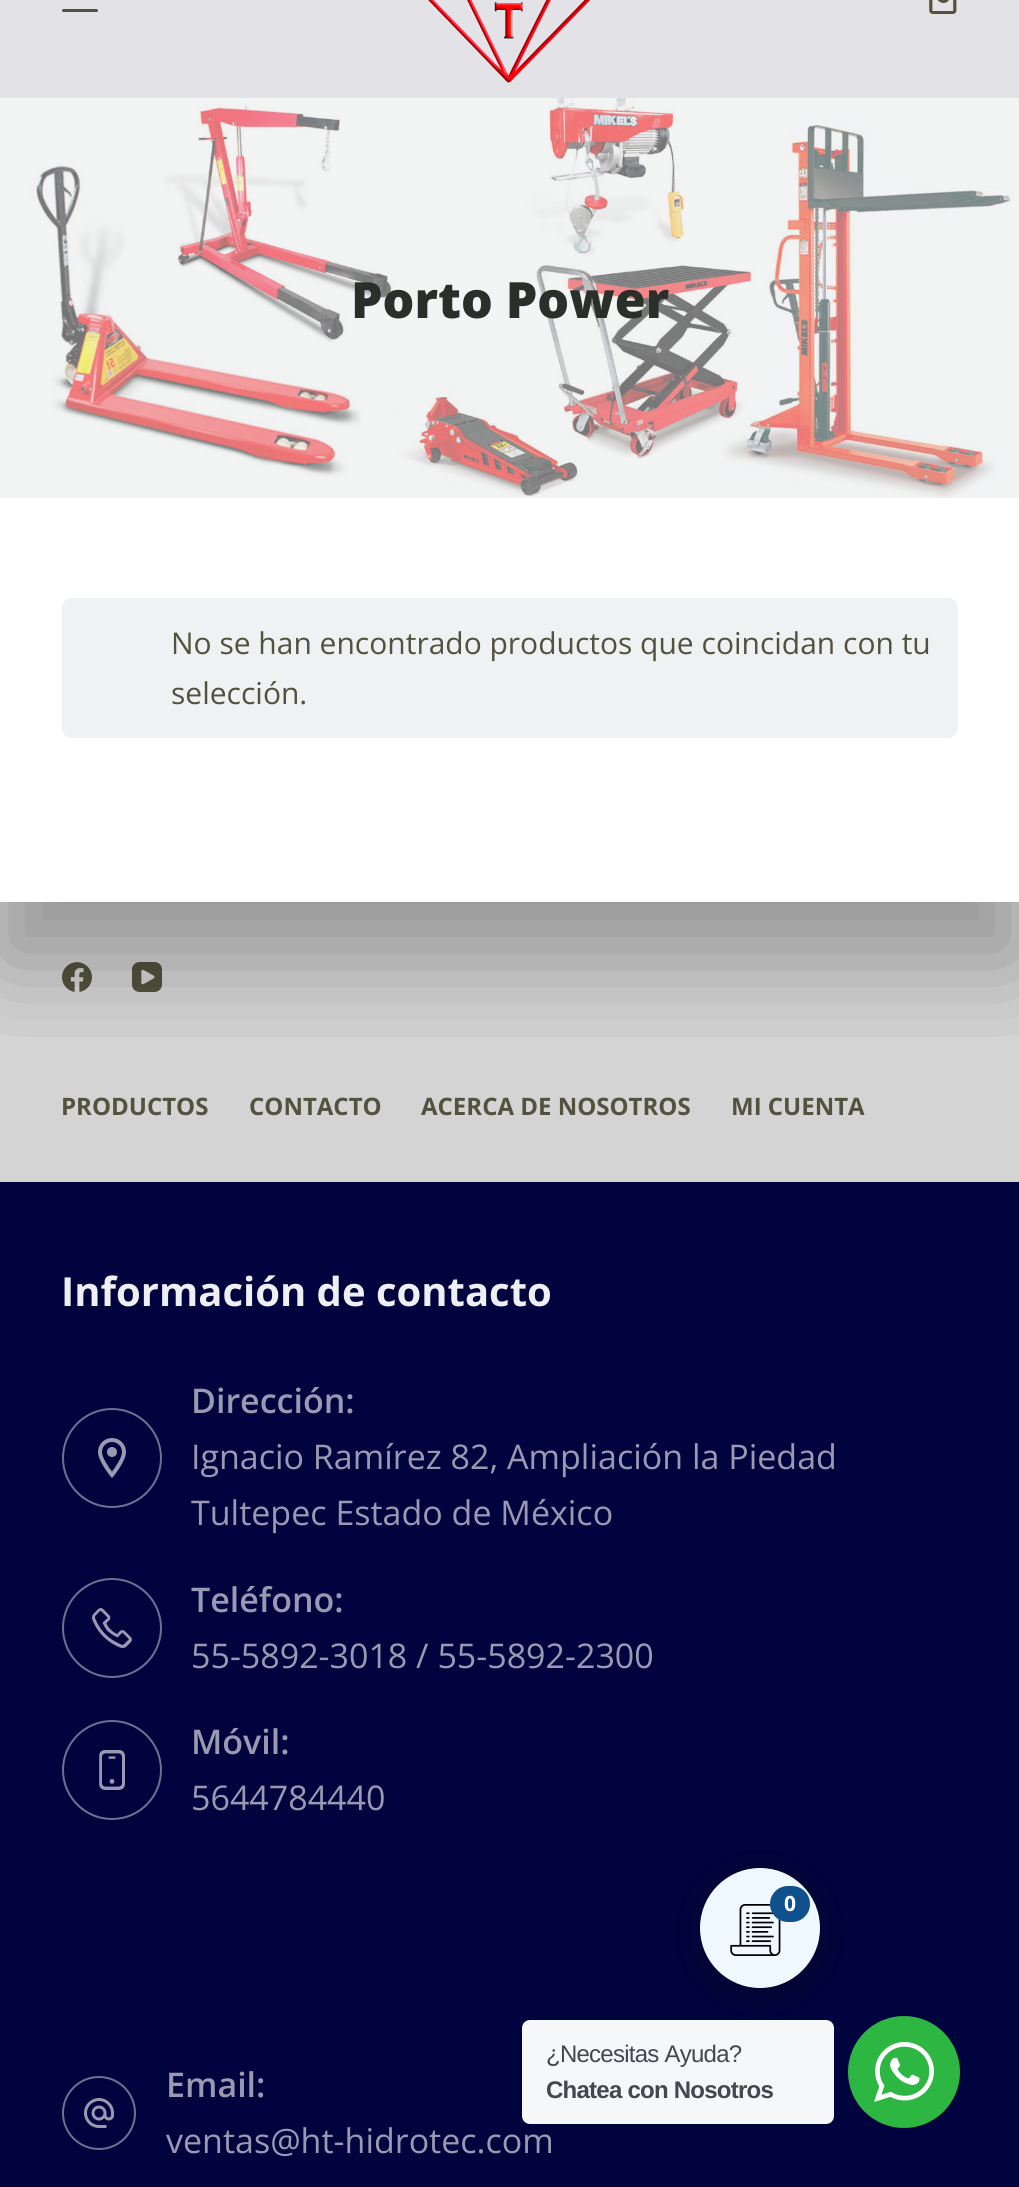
#include <cairo/cairo.h>
#include <math.h>
#include <stddef.h>

static cairo_t *cr;

static void use_color(int r, int g, int b) {
  cairo_set_source_rgb(cr, r / 255.0, g / 255.0, b / 255.0);
}

static void text(double x, double y, const char *s, const char *family, double size, int italic, int bold, int r, int g, int b) {
  cairo_select_font_face(cr, family, italic ? CAIRO_FONT_SLANT_ITALIC : CAIRO_FONT_SLANT_NORMAL,
    bold ? CAIRO_FONT_WEIGHT_BOLD : CAIRO_FONT_WEIGHT_NORMAL);
  cairo_set_font_size(cr, size);
  use_color(r, g, b);
  cairo_move_to(cr, x, y);
  cairo_show_text(cr, s);
}

static void spaced_text(double x, double y, const char *s, double letter, double word) {
  cairo_move_to(cr, x, y);
  while (*s) {
    char ch[5] = {0};
    int n = 0;
    do ch[n++] = *s++; while ((*s & 0xC0) == 0x80);
    cairo_show_text(cr, ch);
    cairo_rel_move_to(cr, letter + word * (*ch == ' '), 0);
  }
}

static void box(double x, double y, double w, double h, int r, int g, int b) {
  use_color(r, g, b);
  cairo_rectangle(cr, x, y, w, h);
  cairo_fill(cr);
}

static void round_rect(double x, double y, double w, double h, double r) {
  cairo_new_sub_path(cr);
  cairo_arc(cr, x + w - r, y + h - r, r, 0, M_PI / 2);
  cairo_arc(cr, x + r, y + h - r, r, M_PI / 2, M_PI);
  cairo_arc(cr, x + r, y + r, r, M_PI, 1.5 * M_PI);
  cairo_arc(cr, x + w - r, y + r, r, 1.5 * M_PI, 2 * M_PI);
  cairo_close_path(cr);
}

static void shadow(double x, double y, double w, double h, double r, double blur, double alpha) {
  cairo_push_group_with_content(cr, CAIRO_CONTENT_ALPHA);
  cairo_set_operator(cr, CAIRO_OPERATOR_SOURCE);
  for (int i = 15; i >= -15 && fmin(w, h) + blur * i / 3 > 0; i -= 2) {
    double e = blur * i / 6;
    cairo_set_source_rgba(cr, 0, 0, 0, alpha * erfc((i - 1) / 8.5) / 2);
    round_rect(x - e, y - e, w + 2 * e, h + 2 * e, fmax(0, fmin(r + e + blur * .6, fmin(w, h) / 2 + e)));
    cairo_fill(cr);
  }
  cairo_pattern_t *soft = cairo_pop_group(cr);
  cairo_mask(cr, soft);
  cairo_pattern_destroy(soft);
}

static void picture(const char *path, double x, double y, double w, double h) {
  cairo_surface_t *image = cairo_image_surface_create_from_png(path);
  cairo_save(cr);
  cairo_set_source_surface(cr, image, x, y);
  cairo_rectangle(cr, x, y, w, h);
  cairo_fill(cr);
  cairo_restore(cr);
  cairo_surface_destroy(image);
}

static void draw(void) {
  use_color(255, 255, 255);
  cairo_paint(cr);
  box(0, 902, 1019, 280, 212, 212, 212);
  picture("img_04.png", 62, 962, 30, 30);
  picture("img_05.png", 132, 962, 30, 30);
  cairo_save(cr);
  cairo_rectangle(cr, 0, 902, 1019, 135);
  cairo_clip(cr);
  use_color(0, 0, 0);
  shadow(0, 158, 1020, 804, 0, 50, 0.3);
  cairo_restore(cr);
  box(0, 0, 1019, 98, 227, 227, 231);
  use_color(82, 82, 63);
  round_rect(62, 9, 36, 3, 1.5);
  cairo_fill(cr);
  picture("img_01.png", 428, 0, 163, 85);
  picture("img_02.png", 929, 0, 28, 14);
  picture("img_03.png", 0, 98, 1019, 400);
  use_color(240, 241, 243);
  round_rect(62, 598, 896, 140, 10);
  cairo_fill(cr);
  box(0, 1182, 1019, 1005, 0, 3, 61);
  cairo_arc(cr, 112, 1458, 49, 0, 2 * M_PI);
  use_color(109, 113, 145);
  cairo_stroke(cr);
  picture("img_06.png", 98, 1438, 28, 40);
  cairo_arc(cr, 112, 1628, 49, 0, 2 * M_PI);
  cairo_stroke(cr);
  picture("img_07.png", 92, 1608, 40, 40);
  cairo_arc(cr, 112, 1770, 49, 0, 2 * M_PI);
  cairo_stroke(cr);
  picture("img_08.png", 99, 1750, 26, 40);
  cairo_arc(cr, 99, 2113, 36, 0, 2 * M_PI);
  cairo_stroke(cr);
  picture("img_09.png", 84, 2098, 30, 30);
  use_color(16, 16, 16);
  shadow(700, 1874, 120, 120, 60, 17, 0.31);
  use_color(240, 248, 255);
  cairo_arc(cr, 760, 1928, 60, 0, 2 * M_PI);
  cairo_fill(cr);
  picture("img_10.png", 730, 1904, 51, 52);
  use_color(16, 81, 141);
  round_rect(770, 1886, 40, 36, 18);
  cairo_fill(cr);
  use_color(245, 247, 249);
  round_rect(522, 2020, 312, 104, 8);
  cairo_fill(cr);
  use_color(45, 183, 66);
  cairo_arc(cr, 904, 2072, 56, 0, 2 * M_PI);
  cairo_fill(cr);
  picture("img_11.png", 874, 2042, 60, 60);
  text(351, 318, "Porto Power", "Open Sans ExtraBold", 50, 0, 0, 42, 47, 42);
  text(171, 654, "No se han encontrado productos que coincidan con tu", "Open Sans", 30, 0, 0, 82, 82, 63);
  text(171, 704, "selección.", "Open Sans", 30, 0, 0, 82, 82, 63);
  text(61, 1115, "PRODUCTOS", "Open Sans", 24, 0, 1, 82, 82, 63);
  text(249, 1115, "CONTACTO", "Open Sans", 24, 0, 1, 82, 82, 63);
  text(421, 1115, "ACERCA DE NOSOTROS", "Open Sans", 24, 0, 1, 82, 82, 63);
  text(731, 1115, "MI CUENTA", "Open Sans", 24, 0, 1, 82, 82, 63);
  text(61, 1306, "Información de contacto", "Open Sans", 40, 0, 1, 237, 239, 242);
  text(191, 1413, "Dirección:", "Open Sans SemiBold", 34, 0, 0, 153, 154, 177);
  text(191, 1469, "Ignacio Ramírez 82, Ampliación la Piedad", "Open Sans", 34, 0, 0, 153, 154, 177);
  text(191, 1525, "Tultepec Estado de México", "Open Sans", 34, 0, 0, 153, 154, 177);
  text(191, 1612, "Teléfono:", "Open Sans SemiBold", 34, 0, 0, 153, 154, 177);
  text(191, 1668, "55-5892-3018 / 55-5892-2300", "Open Sans", 34, 0, 0, 153, 154, 177);
  text(191, 1754, "Móvil:", "Open Sans SemiBold", 34, 0, 0, 153, 154, 177);
  text(191, 1810, "5644784440", "Open Sans", 34, 0, 0, 153, 154, 177);
  text(166, 2097, "Email:", "Open Sans SemiBold", 34, 0, 0, 153, 154, 177);
  text(166, 2153, "ventas@ht-hidrotec.com", "Open Sans", 34, 0, 0, 153, 154, 177);
  text(784, 1911, "0", "Open Sans", 21, 0, 1, 255, 255, 255);
  cairo_select_font_face(cr, "Liberation Sans", CAIRO_FONT_SLANT_NORMAL, CAIRO_FONT_WEIGHT_NORMAL);
  cairo_set_font_size(cr, 24);
  use_color(67, 71, 78);
  spaced_text(546, 2062, "¿Necesitas Ayuda?", -0.75, 0);
  cairo_select_font_face(cr, "Liberation Sans", CAIRO_FONT_SLANT_NORMAL, CAIRO_FONT_WEIGHT_BOLD);
  spaced_text(546, 2098, "Chatea con Nosotros", -0.75, 0);
}

int main(void) {
  cairo_surface_t *surface = cairo_image_surface_create(CAIRO_FORMAT_RGB24, 1019, 2187);
  cr = cairo_create(surface);
  cairo_font_options_t *options = cairo_font_options_create();
  cairo_font_options_set_hint_metrics(options, CAIRO_HINT_METRICS_OFF);
  cairo_font_options_set_hint_style(options, CAIRO_HINT_STYLE_NONE);
  cairo_set_font_options(cr, options);
  cairo_set_miter_limit(cr, 4);
  draw();
  cairo_surface_write_to_png(surface, "out.png");
  cairo_font_options_destroy(options);
  cairo_destroy(cr);
  cairo_surface_destroy(surface);
  return 0;
}
